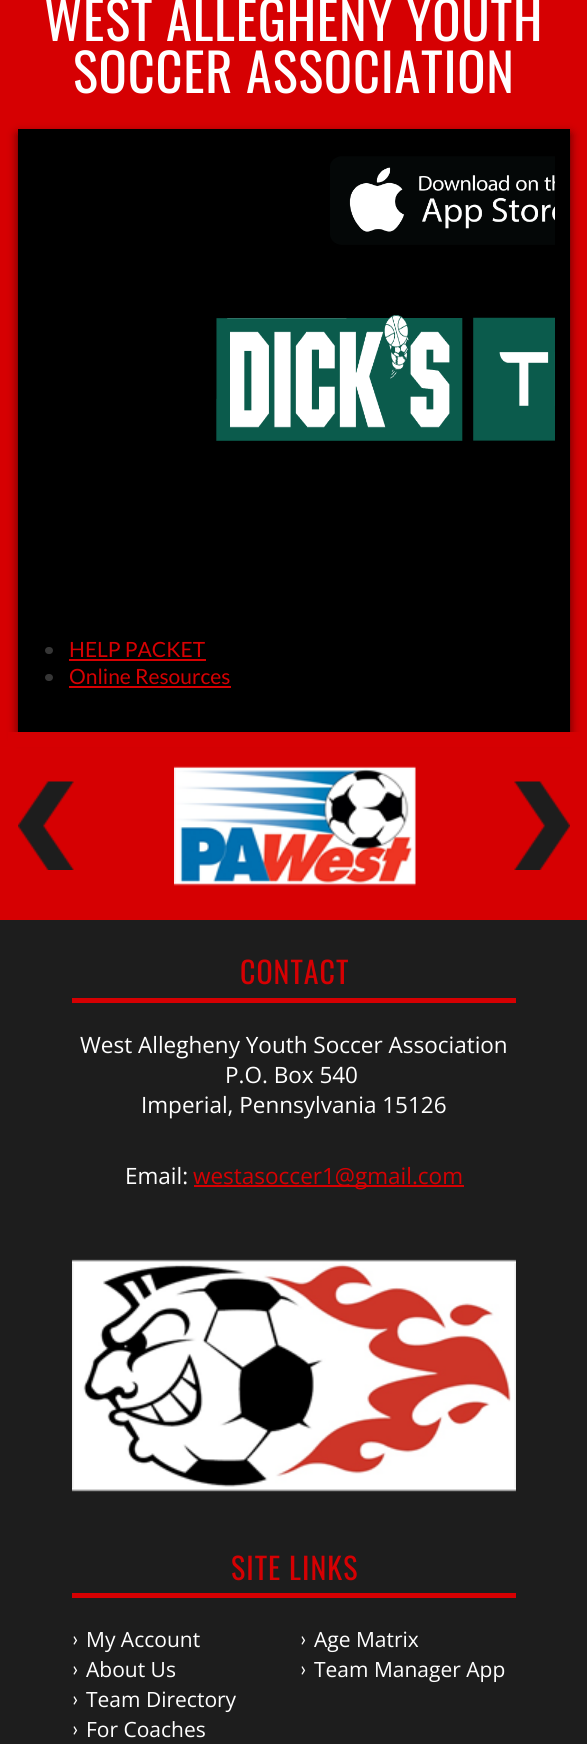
#include <cairo/cairo.h>
#include <math.h>
#include <stddef.h>

static cairo_t *cr;

static void use_color(int r, int g, int b) {
  cairo_set_source_rgb(cr, r / 255.0, g / 255.0, b / 255.0);
}

static void text(double x, double y, const char *s, const char *family, double size, int italic, int bold, int r, int g, int b) {
  cairo_select_font_face(cr, family, italic ? CAIRO_FONT_SLANT_ITALIC : CAIRO_FONT_SLANT_NORMAL,
    bold ? CAIRO_FONT_WEIGHT_BOLD : CAIRO_FONT_WEIGHT_NORMAL);
  cairo_set_font_size(cr, size);
  use_color(r, g, b);
  cairo_move_to(cr, x, y);
  cairo_show_text(cr, s);
}

static void spaced_text(double x, double y, const char *s, double letter, double word) {
  cairo_move_to(cr, x, y);
  while (*s) {
    char ch[5] = {0};
    int n = 0;
    do ch[n++] = *s++; while ((*s & 0xC0) == 0x80);
    cairo_show_text(cr, ch);
    cairo_rel_move_to(cr, letter + word * (*ch == ' '), 0);
  }
}

static void box(double x, double y, double w, double h, int r, int g, int b) {
  use_color(r, g, b);
  cairo_rectangle(cr, x, y, w, h);
  cairo_fill(cr);
}

static void round_rect(double x, double y, double w, double h, double r) {
  cairo_new_sub_path(cr);
  cairo_arc(cr, x + w - r, y + h - r, r, 0, M_PI / 2);
  cairo_arc(cr, x + r, y + h - r, r, M_PI / 2, M_PI);
  cairo_arc(cr, x + r, y + r, r, M_PI, 1.5 * M_PI);
  cairo_arc(cr, x + w - r, y + r, r, 1.5 * M_PI, 2 * M_PI);
  cairo_close_path(cr);
}

static void shadow(double x, double y, double w, double h, double r, double blur, double alpha) {
  cairo_push_group_with_content(cr, CAIRO_CONTENT_ALPHA);
  cairo_set_operator(cr, CAIRO_OPERATOR_SOURCE);
  for (int i = 15; i >= -15 && fmin(w, h) + blur * i / 3 > 0; i -= 2) {
    double e = blur * i / 6;
    cairo_set_source_rgba(cr, 0, 0, 0, alpha * erfc((i - 1) / 8.5) / 2);
    round_rect(x - e, y - e, w + 2 * e, h + 2 * e, fmax(0, fmin(r + e + blur * .6, fmin(w, h) / 2 + e)));
    cairo_fill(cr);
  }
  cairo_pattern_t *soft = cairo_pop_group(cr);
  cairo_mask(cr, soft);
  cairo_pattern_destroy(soft);
}

static void picture(const char *path, double x, double y, double w, double h) {
  cairo_surface_t *image = cairo_image_surface_create_from_png(path);
  cairo_save(cr);
  cairo_set_source_surface(cr, image, x, y);
  cairo_rectangle(cr, x, y, w, h);
  cairo_fill(cr);
  cairo_restore(cr);
  cairo_surface_destroy(image);
}

static void draw(void) {
  use_color(214, 0, 2);
  cairo_paint(cr);
  use_color(0, 0, 0);
  shadow(18, 134, 552, 603, 0, 5, 0.61);
  box(18, 129, 552, 603, 0, 0, 0);
  picture("img_01.png", 330, 156, 225, 89);
  picture("img_02.png", 216, 315, 339, 126);
  use_color(54, 54, 54);
  round_rect(45, 647, 8, 7, 3.5);
  cairo_fill(cr);
  box(69, 659, 137, 2, 214, 0, 2);
  use_color(54, 54, 54);
  round_rect(45, 674, 8, 7, 3.5);
  cairo_fill(cr);
  box(69, 686, 162, 2, 214, 0, 2);
  box(8, 732, 572, 15, 214, 0, 2);
  picture("img_03.png", 18, 781, 56, 89);
  picture("img_04.png", 174, 766, 242, 120);
  picture("img_05.png", 514, 781, 56, 89);
  box(0, 920, 587, 824, 29, 29, 29);
  box(72, 998, 444, 5, 214, 0, 2);
  box(194, 1185, 270, 2, 214, 0, 2);
  picture("img_06.png", 72, 1259, 444, 233);
  box(72, 1593, 444, 5, 214, 0, 2);
  cairo_select_font_face(cr, "Oswald", CAIRO_FONT_SLANT_NORMAL, CAIRO_FONT_WEIGHT_NORMAL);
  cairo_set_font_size(cr, 52.5);
  use_color(255, 255, 255);
  spaced_text(44, 41, "WEST ALLEGHENY YOUTH", 0.75, 0);
  spaced_text(73, 93, "SOCCER ASSOCIATION", 0.75, 0);
  text(69, 657, "HELP PACKET", "Lato", 21, 0, 0, 214, 0, 2);
  text(69, 684, "Online Resources", "Lato", 21, 0, 0, 214, 0, 2);
  cairo_select_font_face(cr, "Oswald", CAIRO_FONT_SLANT_NORMAL, CAIRO_FONT_WEIGHT_NORMAL);
  cairo_set_font_size(cr, 30);
  spaced_text(240, 984, "CONTACT", 1, 0);
  text(80, 1053, "West Allegheny Youth Soccer Association", "Open Sans", 22.5, 0, 0, 255, 255, 255);
  text(225, 1083, "P.O. Box 540", "Open Sans", 22.5, 0, 0, 255, 255, 255);
  text(141, 1113, "Imperial, Pennsylvania 15126", "Open Sans", 22.5, 0, 0, 255, 255, 255);
  text(125, 1184, "Email:", "Open Sans", 22.5, 0, 0, 255, 255, 255);
  text(193, 1184, "westasoccer1@gmail.com", "Open Sans", 22.5, 0, 0, 214, 0, 2);
  cairo_select_font_face(cr, "Oswald", CAIRO_FONT_SLANT_NORMAL, CAIRO_FONT_WEIGHT_NORMAL);
  cairo_set_font_size(cr, 30);
  spaced_text(231, 1580, "SITE LINKS", 1, 0);
  text(72, 1646, "›", "Lato", 21, 0, 0, 255, 255, 255);
  text(86, 1647, "My Account", "Open Sans", 21, 0, 0, 255, 255, 255);
  text(72, 1676, "›", "Lato", 21, 0, 0, 255, 255, 255);
  text(86, 1677, "About Us", "Open Sans", 21, 0, 0, 255, 255, 255);
  text(72, 1706, "›", "Lato", 21, 0, 0, 255, 255, 255);
  text(86, 1707, "Team Directory", "Open Sans", 21, 0, 0, 255, 255, 255);
  text(72, 1736, "›", "Lato", 21, 0, 0, 255, 255, 255);
  text(86, 1737, "For Coaches", "Open Sans", 21, 0, 0, 255, 255, 255);
  text(300, 1646, "›", "Lato", 21, 0, 0, 255, 255, 255);
  text(314, 1647, "Age Matrix", "Open Sans", 21, 0, 0, 255, 255, 255);
  text(300, 1676, "›", "Lato", 21, 0, 0, 255, 255, 255);
  text(314, 1677, "Team Manager App", "Open Sans", 21, 0, 0, 255, 255, 255);
}

int main(void) {
  cairo_surface_t *surface = cairo_image_surface_create(CAIRO_FORMAT_RGB24, 587, 1744);
  cr = cairo_create(surface);
  cairo_font_options_t *options = cairo_font_options_create();
  cairo_font_options_set_hint_metrics(options, CAIRO_HINT_METRICS_OFF);
  cairo_font_options_set_hint_style(options, CAIRO_HINT_STYLE_NONE);
  cairo_set_font_options(cr, options);
  cairo_set_miter_limit(cr, 4);
  draw();
  cairo_surface_write_to_png(surface, "out.png");
  cairo_font_options_destroy(options);
  cairo_destroy(cr);
  cairo_surface_destroy(surface);
  return 0;
}
